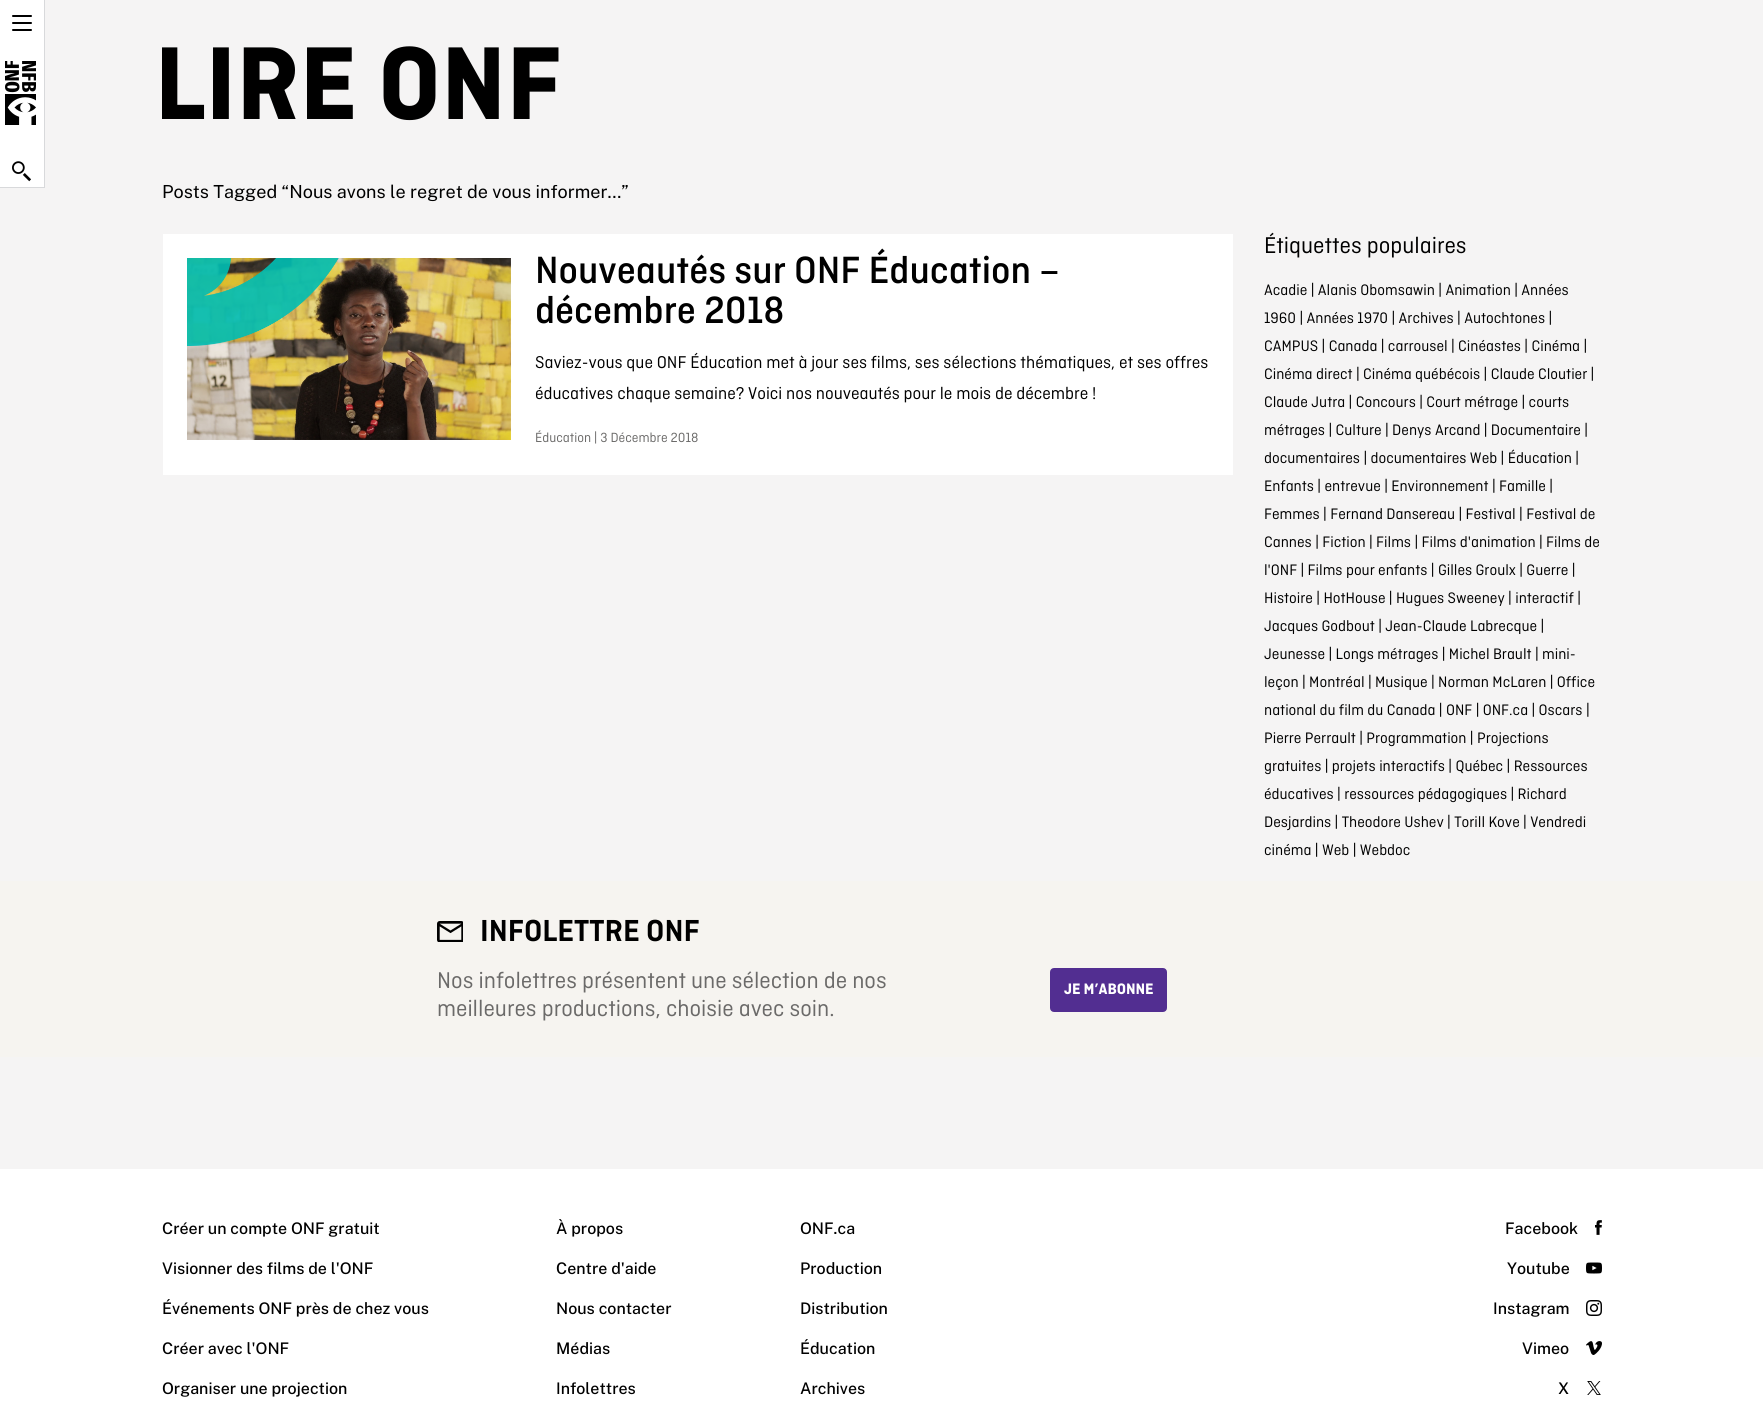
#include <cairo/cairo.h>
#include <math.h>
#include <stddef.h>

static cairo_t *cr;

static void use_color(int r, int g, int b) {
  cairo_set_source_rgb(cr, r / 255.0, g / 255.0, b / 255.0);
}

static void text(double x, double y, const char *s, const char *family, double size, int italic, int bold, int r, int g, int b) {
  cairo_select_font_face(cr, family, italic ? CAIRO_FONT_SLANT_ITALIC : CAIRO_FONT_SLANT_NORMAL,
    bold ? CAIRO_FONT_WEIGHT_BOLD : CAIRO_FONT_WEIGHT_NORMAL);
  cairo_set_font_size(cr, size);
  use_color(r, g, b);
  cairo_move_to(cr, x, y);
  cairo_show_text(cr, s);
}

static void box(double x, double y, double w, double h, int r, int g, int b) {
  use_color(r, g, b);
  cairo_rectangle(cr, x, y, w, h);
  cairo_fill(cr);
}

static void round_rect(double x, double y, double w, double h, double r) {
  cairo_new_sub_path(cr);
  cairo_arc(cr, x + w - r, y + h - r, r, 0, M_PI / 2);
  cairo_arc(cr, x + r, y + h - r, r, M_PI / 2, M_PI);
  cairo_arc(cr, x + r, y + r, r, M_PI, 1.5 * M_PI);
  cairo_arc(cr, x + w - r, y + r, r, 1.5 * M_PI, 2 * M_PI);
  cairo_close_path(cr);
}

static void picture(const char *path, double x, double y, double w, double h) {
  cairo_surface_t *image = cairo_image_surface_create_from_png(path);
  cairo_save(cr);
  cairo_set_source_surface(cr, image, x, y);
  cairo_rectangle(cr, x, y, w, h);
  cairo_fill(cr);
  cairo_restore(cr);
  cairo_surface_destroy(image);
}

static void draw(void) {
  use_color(245, 244, 244);
  cairo_paint(cr);
  box(0, 0, 44, 187, 255, 255, 255);
  box(44, 0, 1, 188, 216, 217, 219);
  box(0, 187, 45, 1, 216, 217, 219);
  use_color(0, 0, 0);
  round_rect(12, 15, 20, 2, 1);
  cairo_fill(cr);
  round_rect(12, 22, 20, 2, 1);
  cairo_fill(cr);
  round_rect(12, 29, 20, 2, 1);
  cairo_fill(cr);
  picture("img_01.png", 5, 61, 31, 64);
  picture("img_02.png", 12, 161, 19, 21);
  box(163, 234, 1070, 241, 255, 255, 255);
  picture("img_03.png", 187, 258, 324, 182);
  box(0, 881, 1763, 176, 246, 244, 240);
  picture("img_04.png", 437, 921, 26, 21);
  use_color(82, 46, 145);
  round_rect(1051, 969, 115, 42, 3);
  cairo_fill_preserve(cr);
  cairo_stroke(cr);
  box(0, 1169, 1763, 243, 255, 255, 255);
  picture("img_05.png", 1595, 1220, 7, 15);
  picture("img_06.png", 1586, 1262, 16, 12);
  picture("img_07.png", 1586, 1300, 16, 16);
  picture("img_08.png", 1586, 1341, 16, 14);
  picture("img_09.png", 1587, 1381, 14, 14);
  cairo_save(cr);
  cairo_rectangle(cr, 162, 24, 1440, 136);
  cairo_clip(cr);
  text(154, 119, "LIRE ONF", "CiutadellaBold", 109, 0, 1, 0, 0, 0);
  cairo_restore(cr);
  text(162, 198, "Posts Tagged “Nous avons le regret de vous informer…”", "Public Sans", 18, 0, 0, 0, 0, 0);
  text(535, 283, "Nouveautés sur ONF Éducation –", "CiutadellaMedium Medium", 40, 0, 0, 0, 0, 0);
  text(535, 323, "décembre 2018", "CiutadellaMedium Medium", 40, 0, 0, 0, 0, 0);
  text(535, 368, "Saviez-vous que ONF Éducation met à jour ses films, ses sélections thématiques, et ses offres", "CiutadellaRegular", 18, 0, 0, 0, 0, 0);
  text(535, 399, "éducatives chaque semaine? Voici nos nouveautés pour le mois de décembre !", "CiutadellaRegular", 18, 0, 0, 0, 0, 0);
  text(535, 442, "Éducation | 3 Décembre 2018", "CiutadellaRegular", 14, 0, 0, 107, 106, 105);
  text(1264, 253, "Étiquettes populaires", "CiutadellaRegular", 24, 0, 0, 0, 0, 0);
  text(1264, 295, "Acadie | Alanis Obomsawin | Animation | Années", "CiutadellaRegular", 16, 0, 0, 0, 0, 0);
  text(1264, 323, "1960 | Années 1970 | Archives | Autochtones |", "CiutadellaRegular", 16, 0, 0, 0, 0, 0);
  text(1264, 351, "CAMPUS | Canada | carrousel | Cinéastes | Cinéma |", "CiutadellaRegular", 16, 0, 0, 0, 0, 0);
  text(1264, 379, "Cinéma direct | Cinéma québécois | Claude Cloutier |", "CiutadellaRegular", 16, 0, 0, 0, 0, 0);
  text(1264, 407, "Claude Jutra | Concours | Court métrage | courts", "CiutadellaRegular", 16, 0, 0, 0, 0, 0);
  text(1264, 435, "métrages | Culture | Denys Arcand | Documentaire |", "CiutadellaRegular", 16, 0, 0, 0, 0, 0);
  text(1264, 463, "documentaires | documentaires Web | Éducation |", "CiutadellaRegular", 16, 0, 0, 0, 0, 0);
  text(1264, 491, "Enfants | entrevue | Environnement | Famille |", "CiutadellaRegular", 16, 0, 0, 0, 0, 0);
  text(1264, 519, "Femmes | Fernand Dansereau | Festival | Festival de", "CiutadellaRegular", 16, 0, 0, 0, 0, 0);
  text(1264, 547, "Cannes | Fiction | Films | Films d'animation | Films de", "CiutadellaRegular", 16, 0, 0, 0, 0, 0);
  text(1264, 575, "l'ONF | Films pour enfants | Gilles Groulx | Guerre |", "CiutadellaRegular", 16, 0, 0, 0, 0, 0);
  text(1264, 603, "Histoire | HotHouse | Hugues Sweeney | interactif |", "CiutadellaRegular", 16, 0, 0, 0, 0, 0);
  text(1264, 631, "Jacques Godbout | Jean-Claude Labrecque |", "CiutadellaRegular", 16, 0, 0, 0, 0, 0);
  text(1264, 659, "Jeunesse | Longs métrages | Michel Brault | mini-", "CiutadellaRegular", 16, 0, 0, 0, 0, 0);
  text(1264, 687, "leçon | Montréal | Musique | Norman McLaren | Office", "CiutadellaRegular", 16, 0, 0, 0, 0, 0);
  text(1264, 715, "national du film du Canada | ONF | ONF.ca | Oscars |", "CiutadellaRegular", 16, 0, 0, 0, 0, 0);
  text(1264, 743, "Pierre Perrault | Programmation | Projections", "CiutadellaRegular", 16, 0, 0, 0, 0, 0);
  text(1264, 771, "gratuites | projets interactifs | Québec | Ressources", "CiutadellaRegular", 16, 0, 0, 0, 0, 0);
  text(1264, 799, "éducatives | ressources pédagogiques | Richard", "CiutadellaRegular", 16, 0, 0, 0, 0, 0);
  text(1264, 827, "Desjardins | Theodore Ushev | Torill Kove | Vendredi", "CiutadellaRegular", 16, 0, 0, 0, 0, 0);
  text(1264, 855, "cinéma | Web | Webdoc", "CiutadellaRegular", 16, 0, 0, 0, 0, 0);
  text(480, 941, "INFOLETTRE ONF", "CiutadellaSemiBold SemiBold", 32, 0, 0, 0, 0, 0);
  text(437, 988, "Nos infolettres présentent une sélection de nos", "CiutadellaRegular", 24, 0, 0, 107, 106, 105);
  text(437, 1016, "meilleures productions, choisie avec soin.", "CiutadellaRegular", 24, 0, 0, 107, 106, 105);
  text(1064, 994, "JE M’ABONNE", "CiutadellaBold", 16, 0, 1, 255, 255, 255);
  text(162, 1234, "Créer un compte ONF gratuit", "Public Sans Medium", 16, 0, 0, 0, 0, 0);
  text(162, 1274, "Visionner des films de l'ONF", "Public Sans Medium", 16, 0, 0, 0, 0, 0);
  text(162, 1314, "Événements ONF près de chez vous", "Public Sans Medium", 16, 0, 0, 0, 0, 0);
  text(162, 1354, "Créer avec l'ONF", "Public Sans Medium", 16, 0, 0, 0, 0, 0);
  text(162, 1394, "Organiser une projection", "Public Sans Medium", 16, 0, 0, 0, 0, 0);
  text(556, 1234, "À propos", "Public Sans Medium", 16, 0, 0, 0, 0, 0);
  text(556, 1274, "Centre d'aide", "Public Sans Medium", 16, 0, 0, 0, 0, 0);
  text(556, 1314, "Nous contacter", "Public Sans Medium", 16, 0, 0, 0, 0, 0);
  text(556, 1354, "Médias", "Public Sans Medium", 16, 0, 0, 0, 0, 0);
  text(556, 1394, "Infolettres", "Public Sans Medium", 16, 0, 0, 0, 0, 0);
  text(800, 1234, "ONF.ca", "Public Sans Medium", 16, 0, 0, 0, 0, 0);
  text(800, 1274, "Production", "Public Sans Medium", 16, 0, 0, 0, 0, 0);
  text(800, 1314, "Distribution", "Public Sans Medium", 16, 0, 0, 0, 0, 0);
  text(800, 1354, "Éducation", "Public Sans Medium", 16, 0, 0, 0, 0, 0);
  text(800, 1394, "Archives", "Public Sans Medium", 16, 0, 0, 0, 0, 0);
  text(1505, 1234, "Facebook", "Public Sans Medium", 16, 0, 0, 0, 0, 0);
  text(1507, 1274, "Youtube", "Public Sans Medium", 16, 0, 0, 0, 0, 0);
  text(1493, 1314, "Instagram", "Public Sans Medium", 16, 0, 0, 0, 0, 0);
  text(1522, 1354, "Vimeo", "Public Sans Medium", 16, 0, 0, 0, 0, 0);
  text(1558, 1394, "X", "Public Sans Medium", 16, 0, 0, 0, 0, 0);
}

int main(void) {
  cairo_surface_t *surface = cairo_image_surface_create(CAIRO_FORMAT_RGB24, 1763, 1412);
  cr = cairo_create(surface);
  cairo_font_options_t *options = cairo_font_options_create();
  cairo_font_options_set_hint_metrics(options, CAIRO_HINT_METRICS_OFF);
  cairo_font_options_set_hint_style(options, CAIRO_HINT_STYLE_NONE);
  cairo_set_font_options(cr, options);
  cairo_set_miter_limit(cr, 4);
  draw();
  cairo_surface_write_to_png(surface, "out.png");
  cairo_font_options_destroy(options);
  cairo_destroy(cr);
  cairo_surface_destroy(surface);
  return 0;
}
